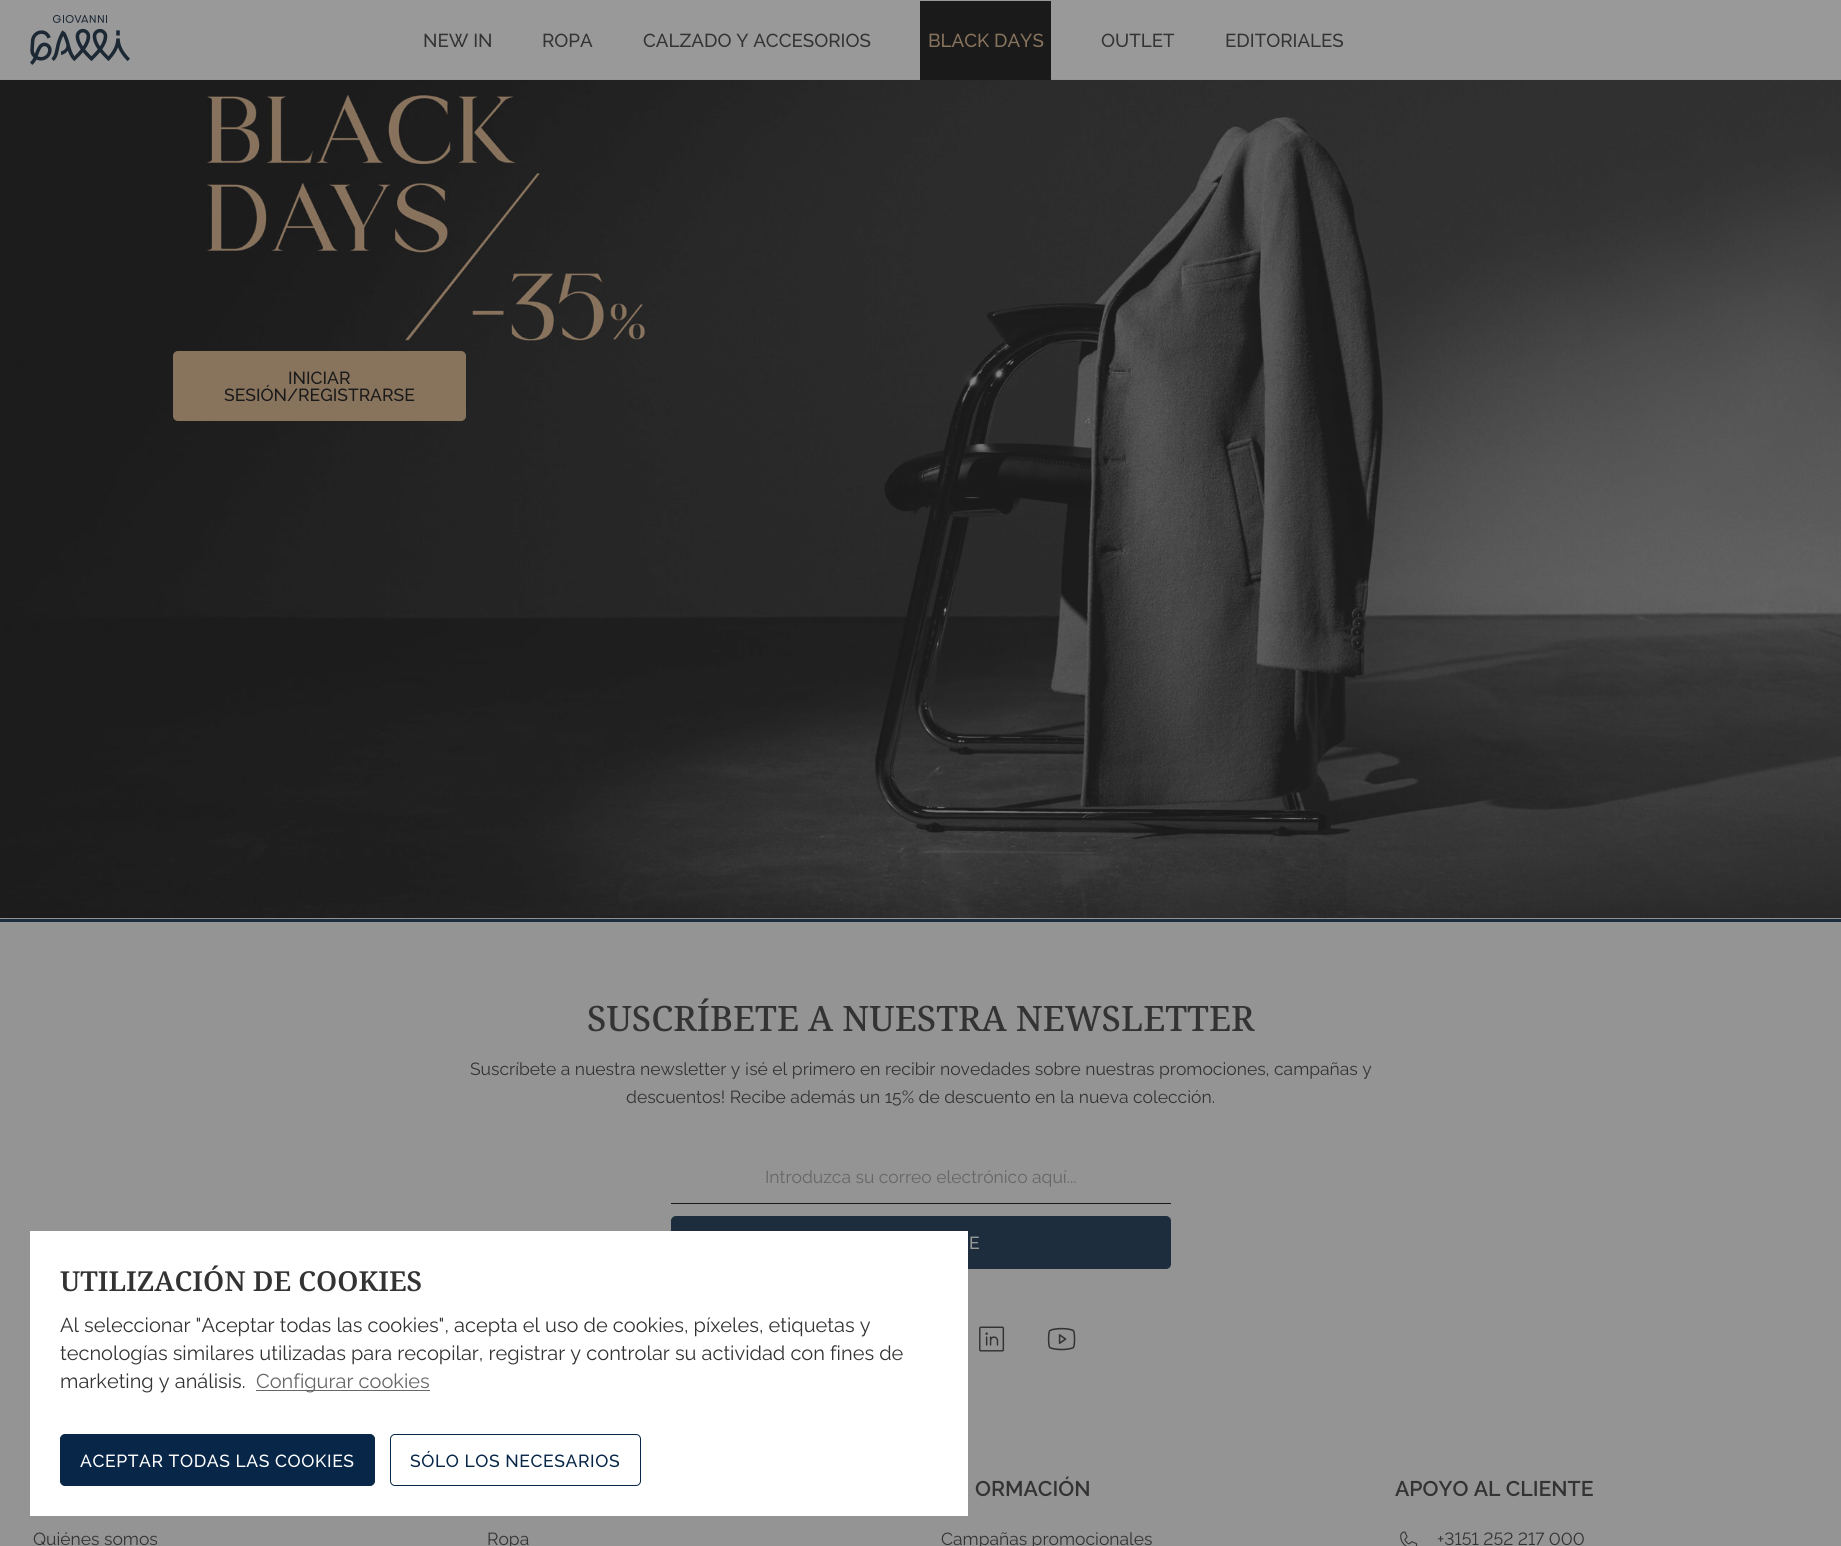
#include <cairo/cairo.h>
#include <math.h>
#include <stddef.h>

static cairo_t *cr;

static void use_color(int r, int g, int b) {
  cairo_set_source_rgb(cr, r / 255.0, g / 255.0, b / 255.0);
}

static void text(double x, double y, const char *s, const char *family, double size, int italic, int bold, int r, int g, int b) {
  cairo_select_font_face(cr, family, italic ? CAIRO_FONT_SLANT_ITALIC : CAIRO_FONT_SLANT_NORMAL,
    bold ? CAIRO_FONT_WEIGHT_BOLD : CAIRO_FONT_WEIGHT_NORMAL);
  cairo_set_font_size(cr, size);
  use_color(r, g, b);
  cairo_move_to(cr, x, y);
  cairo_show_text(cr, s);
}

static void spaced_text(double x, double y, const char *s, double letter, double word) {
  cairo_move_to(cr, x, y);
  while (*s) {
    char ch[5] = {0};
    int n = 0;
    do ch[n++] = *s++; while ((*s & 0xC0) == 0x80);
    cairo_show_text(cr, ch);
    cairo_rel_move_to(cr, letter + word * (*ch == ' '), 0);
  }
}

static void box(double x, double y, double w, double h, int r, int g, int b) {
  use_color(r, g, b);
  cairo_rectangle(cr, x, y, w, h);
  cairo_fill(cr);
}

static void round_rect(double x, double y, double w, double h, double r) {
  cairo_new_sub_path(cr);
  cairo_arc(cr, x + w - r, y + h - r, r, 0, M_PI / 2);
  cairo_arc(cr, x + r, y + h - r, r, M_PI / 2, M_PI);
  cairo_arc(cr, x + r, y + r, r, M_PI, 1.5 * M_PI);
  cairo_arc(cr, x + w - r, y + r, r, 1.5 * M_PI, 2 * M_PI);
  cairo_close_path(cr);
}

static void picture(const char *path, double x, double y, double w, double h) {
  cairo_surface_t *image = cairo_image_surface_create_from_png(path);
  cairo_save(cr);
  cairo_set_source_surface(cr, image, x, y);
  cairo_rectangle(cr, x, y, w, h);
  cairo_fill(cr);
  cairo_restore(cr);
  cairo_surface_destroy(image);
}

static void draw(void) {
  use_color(153, 153, 153);
  cairo_paint(cr);
  picture("img_01.png", 30, 15, 100, 50);
  box(0, 79, 1841, 1, 148, 148, 148);
  box(920, 1, 131, 79, 26, 26, 26);
  picture("img_02.png", 0, 80, 1841, 839);
  use_color(136, 115, 93);
  round_rect(173.5, 351.5, 292, 69, 4.5);
  cairo_fill_preserve(cr);
  cairo_set_line_width(cr, 1);
  cairo_stroke(cr);
  box(0, 922, 1841, 624, 148, 148, 148);
  box(0, 919, 1841, 3, 29, 45, 62);
  box(671, 1203, 500, 1, 26, 26, 26);
  use_color(29, 45, 62);
  round_rect(671.5, 1216.5, 499, 52, 4.5);
  cairo_fill_preserve(cr);
  cairo_stroke(cr);
  picture("img_03.png", 979, 1326, 26, 26);
  picture("img_04.png", 1047, 1327, 29, 24);
  picture("img_05.png", 1400, 1531, 18, 15);
  box(30, 1231, 938, 285, 255, 255, 255);
  box(256, 1390, 174, 1, 102, 102, 102);
  use_color(7, 38, 72);
  round_rect(60.5, 1434.5, 314, 51, 4.5);
  cairo_fill_preserve(cr);
  cairo_stroke(cr);
  round_rect(390.5, 1434.5, 250, 51, 4.5);
  cairo_stroke(cr);
  text(423, 47, "NEW IN", "Raleway Thin", 18.75, 0, 0, 51, 51, 51);
  text(542, 47, "ROPA", "Raleway Thin", 18.75, 0, 0, 51, 51, 51);
  text(643, 47, "CALZADO Y ACCESORIOS", "Raleway Thin", 18.75, 0, 0, 51, 51, 51);
  text(928, 47, "BLACK DAYS", "Raleway Thin", 18.75, 0, 0, 136, 115, 93);
  text(1101, 47, "OUTLET", "Raleway Thin", 18.75, 0, 0, 51, 51, 51);
  text(1225, 47, "EDITORIALES", "Raleway Thin", 18.75, 0, 0, 51, 51, 51);
  text(288, 384, "INICIAR", "Raleway Thin", 17.5, 0, 0, 26, 26, 26);
  text(224, 401, "SESIÓN/REGISTRARSE", "Raleway Thin", 17.5, 0, 0, 26, 26, 26);
  text(587, 1031, "SUSCRÍBETE A NUESTRA NEWSLETTER", "Noto Serif Medium", 35, 0, 0, 51, 51, 51);
  text(470, 1075, "Suscríbete a nuestra newsletter y ¡sé el primero en recibir novedades sobre nuestras promociones, campañas y", "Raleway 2 Thin", 17.5, 0, 0, 51, 51, 51);
  text(626, 1103, "descuentos! Recibe además un 15% de descuento en la nueva colección.", "Raleway 2 Thin", 17.5, 0, 0, 51, 51, 51);
  text(765, 1183, "Introduzca su correo electrónico aquí...", "Raleway 2 Thin", 17.5, 0, 0, 102, 102, 102);
  cairo_select_font_face(cr, "Raleway Thin", CAIRO_FONT_SLANT_NORMAL, CAIRO_FONT_WEIGHT_NORMAL);
  use_color(153, 153, 153);
  spaced_text(969, 1249, "E", 0.6, 0);
  text(33, 1545, "Quiénes somos", "Raleway 2 Thin", 17.5, 0, 0, 51, 51, 51);
  text(487, 1545, "Ropa", "Raleway 2 Thin", 17.5, 0, 0, 51, 51, 51);
  text(975, 1496, "ORMACIÓN", "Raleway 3 Thin", 21.25, 0, 0, 51, 51, 51);
  text(941, 1545, "Campañas promocionales", "Raleway 2 Thin", 17.5, 0, 0, 51, 51, 51);
  text(1395, 1496, "APOYO AL CLIENTE", "Raleway 3 Thin", 21.25, 0, 0, 51, 51, 51);
  text(1437, 1545, "+3151 252 217 000", "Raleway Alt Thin", 17.5, 0, 0, 51, 51, 51);
  text(60, 1291, "UTILIZACIÓN DE COOKIES", "Noto Serif SemiBold", 27.5, 0, 0, 51, 51, 51);
  text(60, 1332, "Al seleccionar \"Aceptar todas las cookies\", acepta el uso de cookies, píxeles, etiquetas y", "Raleway 2 Thin", 20, 0, 0, 51, 51, 51);
  text(60, 1360, "tecnologías similares utilizadas para recopilar, registrar y controlar su actividad con fines de", "Raleway 2 Thin", 20, 0, 0, 51, 51, 51);
  text(60, 1388, "marketing y análisis.", "Raleway 2 Thin", 20, 0, 0, 51, 51, 51);
  text(256, 1388, "Configurar cookies", "Raleway 2 Thin", 20, 0, 0, 102, 102, 102);
  cairo_select_font_face(cr, "Raleway Thin", CAIRO_FONT_SLANT_NORMAL, CAIRO_FONT_WEIGHT_NORMAL);
  cairo_set_font_size(cr, 17.5);
  use_color(255, 255, 255);
  spaced_text(80, 1467, "ACEPTAR TODAS LAS COOKIES", 0.6, 0);
  use_color(7, 38, 72);
  spaced_text(410, 1467, "SÓLO LOS NECESARIOS", 0.6, 0);
}

int main(void) {
  cairo_surface_t *surface = cairo_image_surface_create(CAIRO_FORMAT_RGB24, 1841, 1546);
  cr = cairo_create(surface);
  cairo_font_options_t *options = cairo_font_options_create();
  cairo_font_options_set_hint_metrics(options, CAIRO_HINT_METRICS_OFF);
  cairo_font_options_set_hint_style(options, CAIRO_HINT_STYLE_NONE);
  cairo_set_font_options(cr, options);
  cairo_set_miter_limit(cr, 4);
  draw();
  cairo_surface_write_to_png(surface, "out.png");
  cairo_font_options_destroy(options);
  cairo_destroy(cr);
  cairo_surface_destroy(surface);
  return 0;
}
